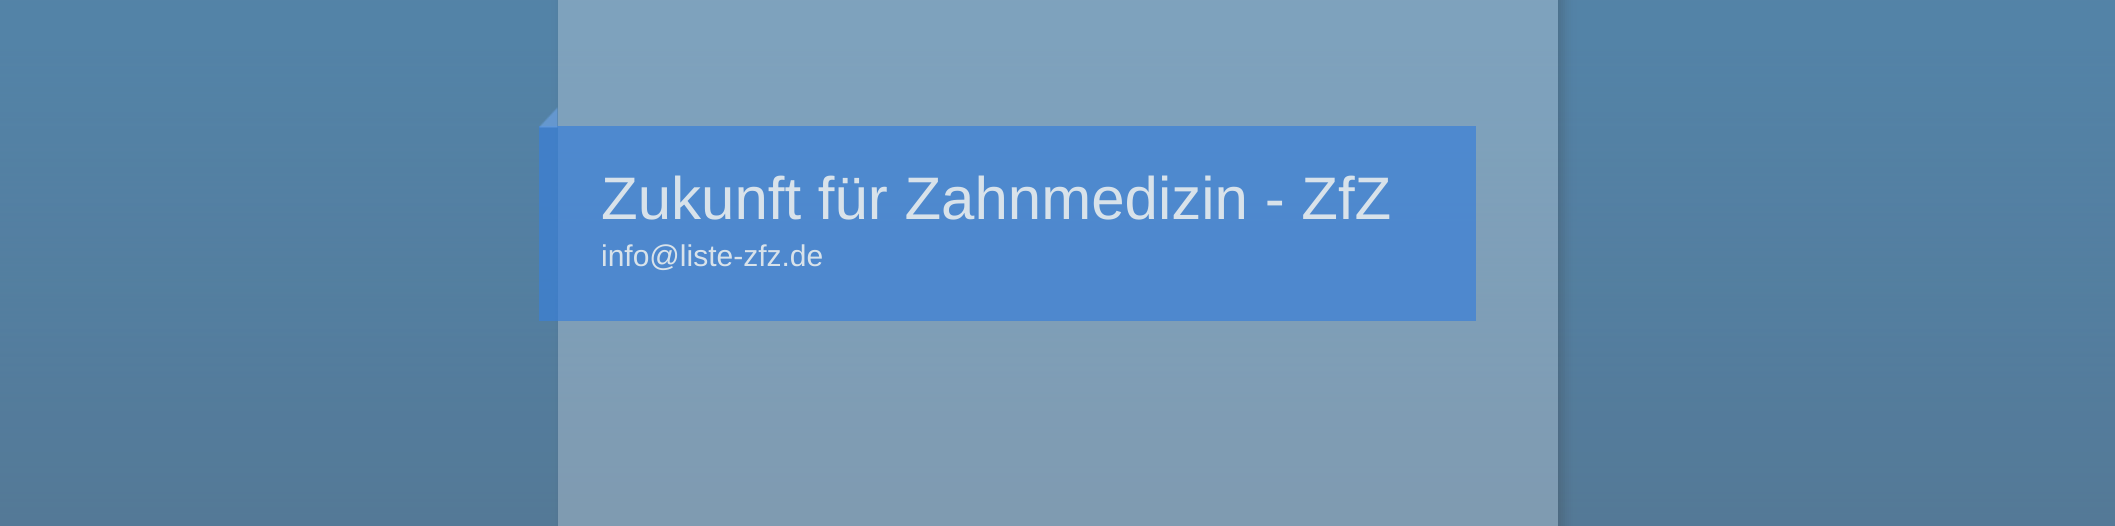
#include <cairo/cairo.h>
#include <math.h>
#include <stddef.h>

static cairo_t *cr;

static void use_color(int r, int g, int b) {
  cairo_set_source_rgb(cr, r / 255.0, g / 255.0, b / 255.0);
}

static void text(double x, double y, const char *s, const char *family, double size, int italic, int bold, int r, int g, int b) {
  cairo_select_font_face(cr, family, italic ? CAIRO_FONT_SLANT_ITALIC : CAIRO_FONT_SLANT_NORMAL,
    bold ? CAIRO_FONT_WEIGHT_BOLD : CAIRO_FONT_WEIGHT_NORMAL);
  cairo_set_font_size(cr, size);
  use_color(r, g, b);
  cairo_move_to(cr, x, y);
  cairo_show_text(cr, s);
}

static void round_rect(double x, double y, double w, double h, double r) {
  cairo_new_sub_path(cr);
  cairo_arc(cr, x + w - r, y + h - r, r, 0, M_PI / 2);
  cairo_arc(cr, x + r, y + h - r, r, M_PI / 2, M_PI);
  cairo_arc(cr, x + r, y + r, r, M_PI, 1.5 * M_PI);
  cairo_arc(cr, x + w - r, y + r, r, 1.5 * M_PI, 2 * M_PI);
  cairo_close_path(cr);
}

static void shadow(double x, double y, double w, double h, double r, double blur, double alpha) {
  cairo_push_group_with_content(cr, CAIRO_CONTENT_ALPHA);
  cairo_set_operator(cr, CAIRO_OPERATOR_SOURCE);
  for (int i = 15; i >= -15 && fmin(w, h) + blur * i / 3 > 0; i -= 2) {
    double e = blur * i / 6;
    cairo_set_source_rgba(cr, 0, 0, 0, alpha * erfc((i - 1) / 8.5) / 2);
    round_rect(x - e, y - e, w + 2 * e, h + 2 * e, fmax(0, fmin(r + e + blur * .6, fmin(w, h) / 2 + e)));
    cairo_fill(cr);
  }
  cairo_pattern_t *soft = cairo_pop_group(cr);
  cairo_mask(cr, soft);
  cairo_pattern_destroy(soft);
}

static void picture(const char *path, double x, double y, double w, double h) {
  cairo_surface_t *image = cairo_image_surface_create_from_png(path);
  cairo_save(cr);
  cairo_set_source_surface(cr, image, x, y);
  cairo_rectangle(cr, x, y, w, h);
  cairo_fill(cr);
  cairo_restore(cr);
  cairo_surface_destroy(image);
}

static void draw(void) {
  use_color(255, 255, 255);
  cairo_paint(cr);
  picture("img_01.png", 0, 0, 2115, 526);
  cairo_save(cr);
  cairo_set_fill_rule(cr, CAIRO_FILL_RULE_EVEN_ODD);
  cairo_new_path(cr);
  cairo_move_to(cr, 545, 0);
  cairo_line_to(cr, 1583, 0);
  cairo_line_to(cr, 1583, 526);
  cairo_line_to(cr, 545, 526);
  cairo_close_path(cr);
  cairo_move_to(cr, 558, -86);
  cairo_line_to(cr, 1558, -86);
  cairo_line_to(cr, 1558, 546);
  cairo_line_to(cr, 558, 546);
  cairo_close_path(cr);
  cairo_clip(cr);
  use_color(50, 50, 50);
  shadow(564, -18, 1000, 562, 0, 6, 0.25);
  cairo_restore(cr);
  cairo_set_source_rgba(cr, 1, 1, 1, 0.25);
  cairo_rectangle(cr, 558, 0, 1000, 526);
  cairo_fill(cr);
  cairo_set_source_rgba(cr, 0.227, 0.502, 0.843, 0.7);
  cairo_rectangle(cr, 539, 126, 937, 195);
  cairo_fill(cr);
  picture("img_02.png", 539, 107, 19, 21);
  text(601, 219, "Zukunft für Zahnmedizin - ZfZ", "Liberation Sans", 60, 0, 0, 216, 226, 234);
  text(601, 266, "info@liste-zfz.de", "Liberation Sans", 30, 0, 0, 216, 226, 234);
}

int main(void) {
  cairo_surface_t *surface = cairo_image_surface_create(CAIRO_FORMAT_RGB24, 2115, 526);
  cr = cairo_create(surface);
  cairo_font_options_t *options = cairo_font_options_create();
  cairo_font_options_set_hint_metrics(options, CAIRO_HINT_METRICS_OFF);
  cairo_font_options_set_hint_style(options, CAIRO_HINT_STYLE_NONE);
  cairo_set_font_options(cr, options);
  cairo_set_miter_limit(cr, 4);
  draw();
  cairo_surface_write_to_png(surface, "out.png");
  cairo_font_options_destroy(options);
  cairo_destroy(cr);
  cairo_surface_destroy(surface);
  return 0;
}
